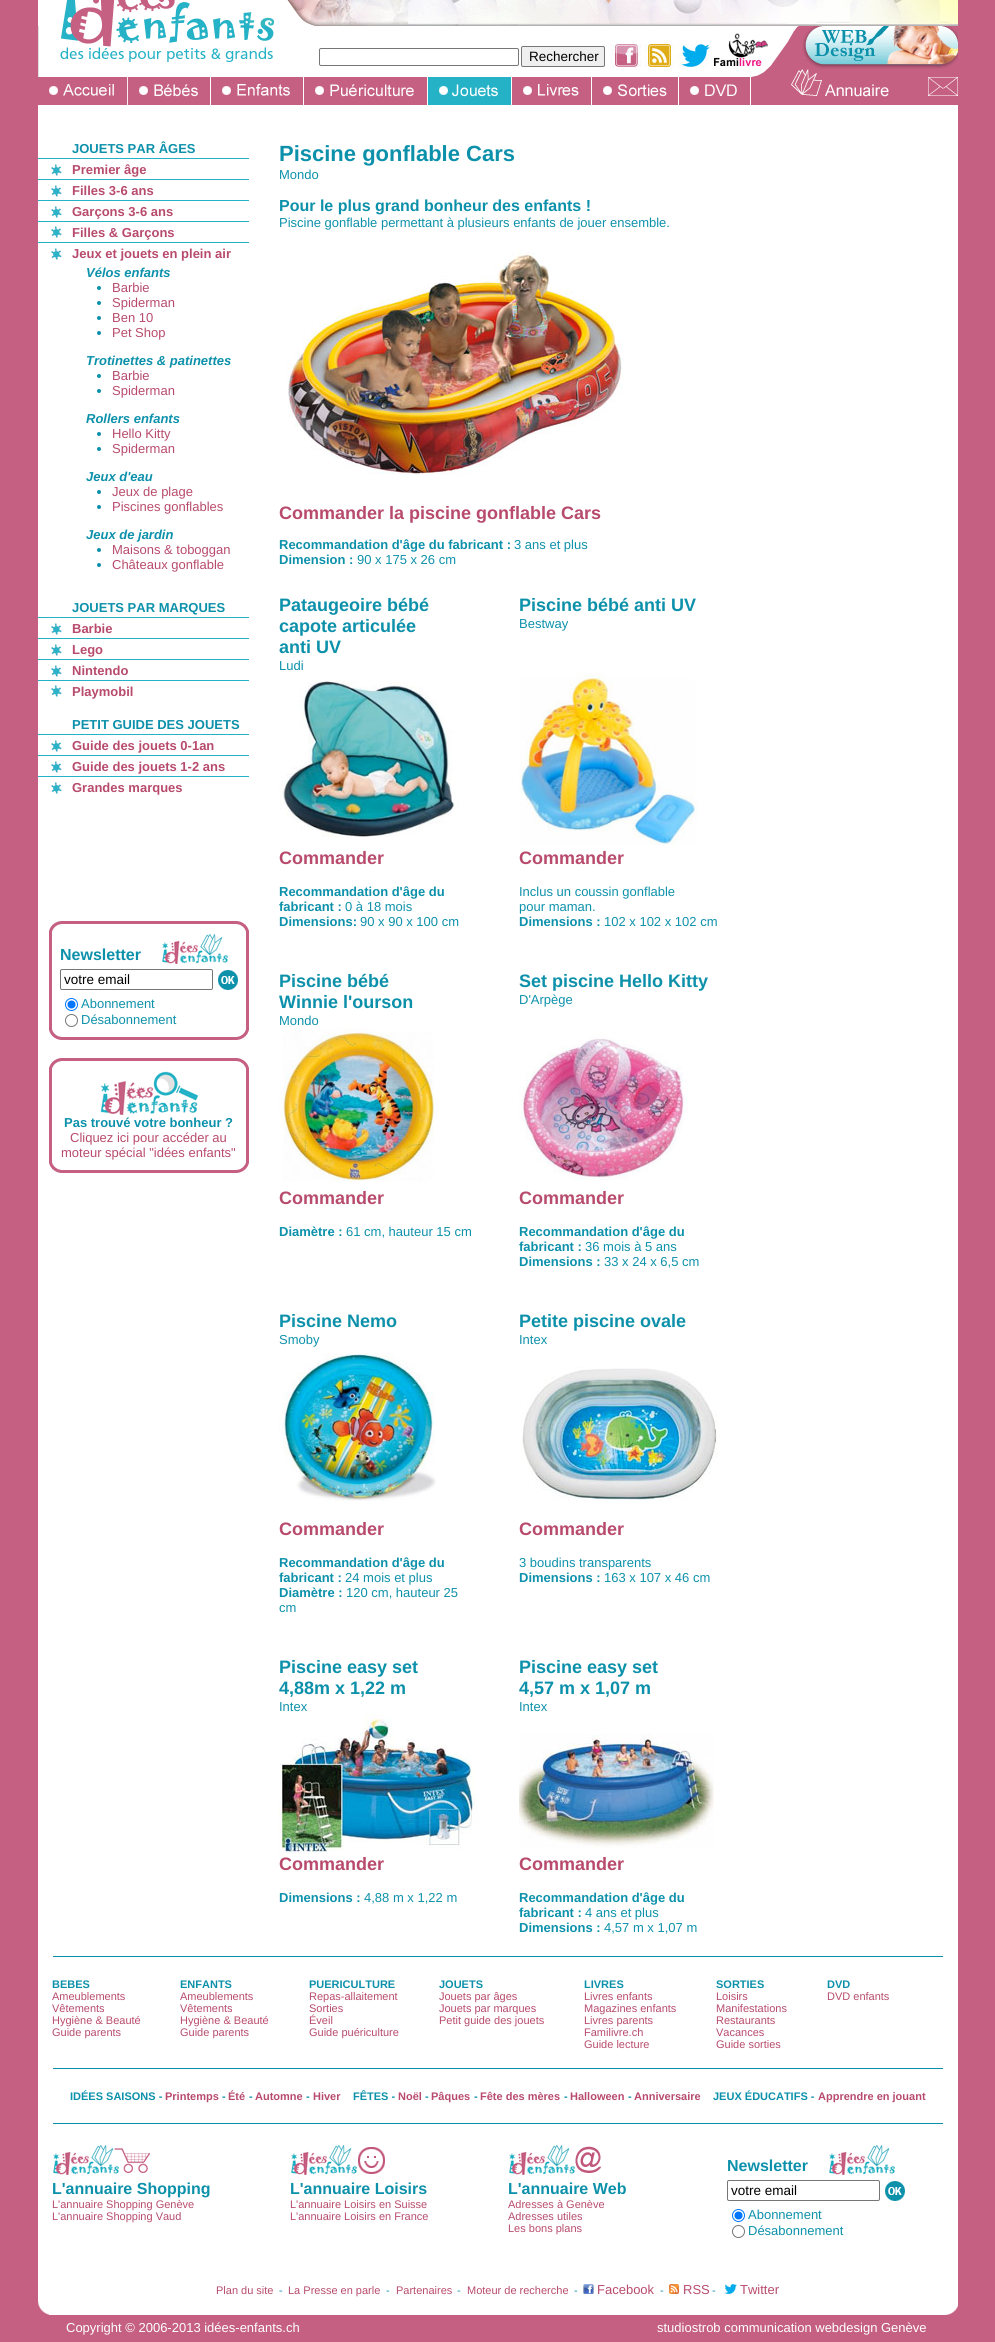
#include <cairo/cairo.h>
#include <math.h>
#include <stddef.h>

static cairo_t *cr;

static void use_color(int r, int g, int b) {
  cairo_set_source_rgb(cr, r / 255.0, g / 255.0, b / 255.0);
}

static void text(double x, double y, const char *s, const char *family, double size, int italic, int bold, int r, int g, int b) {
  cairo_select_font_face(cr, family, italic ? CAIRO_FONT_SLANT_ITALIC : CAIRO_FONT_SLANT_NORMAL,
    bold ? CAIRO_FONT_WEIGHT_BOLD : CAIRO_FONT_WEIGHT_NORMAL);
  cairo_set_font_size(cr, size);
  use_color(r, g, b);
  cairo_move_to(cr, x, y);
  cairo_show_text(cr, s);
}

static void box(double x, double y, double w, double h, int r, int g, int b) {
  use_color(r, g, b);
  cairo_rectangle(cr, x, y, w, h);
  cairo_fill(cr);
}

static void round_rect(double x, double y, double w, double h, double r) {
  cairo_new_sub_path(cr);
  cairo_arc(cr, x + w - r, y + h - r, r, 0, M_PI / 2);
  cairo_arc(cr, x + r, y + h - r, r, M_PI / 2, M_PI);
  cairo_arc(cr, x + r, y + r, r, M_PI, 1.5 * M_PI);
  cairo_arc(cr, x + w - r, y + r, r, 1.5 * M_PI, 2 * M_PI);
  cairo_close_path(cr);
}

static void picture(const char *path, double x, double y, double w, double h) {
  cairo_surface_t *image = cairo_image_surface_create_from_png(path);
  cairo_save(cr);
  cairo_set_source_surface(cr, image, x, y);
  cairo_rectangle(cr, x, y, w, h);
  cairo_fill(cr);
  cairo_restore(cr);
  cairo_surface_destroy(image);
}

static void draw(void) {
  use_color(197, 96, 130);
  cairo_paint(cr);
  picture("img_01.png", 38, 0, 281, 26);
  picture("img_02.png", 319, 0, 395, 26);
  picture("img_03.png", 714, 0, 244, 26);
  picture("img_04.png", 38, 26, 281, 51);
  box(319, 26, 395, 51, 255, 255, 255);
  round_rect(319.5, 48.5, 199, 17, 1.5);
  use_color(118, 118, 118);
  cairo_set_line_width(cr, 1);
  cairo_stroke(cr);
  use_color(239, 239, 239);
  round_rect(521.5, 46.5, 83, 20, 1.5);
  cairo_fill_preserve(cr);
  use_color(118, 118, 118);
  cairo_stroke(cr);
  picture("img_05.png", 611, 44, 31, 23);
  picture("img_06.png", 644, 44, 31, 23);
  picture("img_07.png", 677, 44, 33, 23);
  picture("img_08.png", 714, 26, 244, 51);
  picture("img_09.png", 49, 77, 79, 28);
  picture("img_10.png", 139, 77, 72, 28);
  picture("img_11.png", 222, 77, 82, 28);
  picture("img_12.png", 315, 77, 113, 28);
  picture("img_13.png", 428, 77, 84, 28);
  picture("img_14.png", 523, 77, 69, 28);
  picture("img_15.png", 603, 77, 76, 28);
  picture("img_16.png", 690, 77, 61, 28);
  picture("img_17.png", 791, 77, 167, 20);
  box(38, 105, 920, 2192, 255, 255, 255);
  box(38, 158, 211, 1, 38, 178, 198);
  picture("img_18.png", 51, 164, 11, 12);
  box(38, 179, 211, 1, 38, 178, 198);
  picture("img_18.png", 51, 185, 11, 12);
  box(38, 200, 211, 1, 38, 178, 198);
  picture("img_18.png", 51, 206, 11, 12);
  box(38, 221, 211, 1, 38, 178, 198);
  picture("img_18.png", 51, 226, 11, 12);
  box(38, 242, 211, 1, 38, 178, 198);
  picture("img_18.png", 51, 248, 11, 12);
  use_color(13, 145, 171);
  cairo_arc(cr, 99, 288, 2, 0, 2 * M_PI);
  cairo_fill(cr);
  cairo_arc(cr, 99, 303, 2, 0, 2 * M_PI);
  cairo_fill(cr);
  cairo_arc(cr, 99, 318, 2, 0, 2 * M_PI);
  cairo_fill(cr);
  cairo_arc(cr, 99, 333, 2, 0, 2 * M_PI);
  cairo_fill(cr);
  cairo_arc(cr, 99, 376, 2, 0, 2 * M_PI);
  cairo_fill(cr);
  cairo_arc(cr, 99, 391, 2, 0, 2 * M_PI);
  cairo_fill(cr);
  cairo_arc(cr, 99, 434, 2, 0, 2 * M_PI);
  cairo_fill(cr);
  cairo_arc(cr, 99, 449, 2, 0, 2 * M_PI);
  cairo_fill(cr);
  cairo_arc(cr, 99, 492, 2, 0, 2 * M_PI);
  cairo_fill(cr);
  cairo_arc(cr, 99, 507, 2, 0, 2 * M_PI);
  cairo_fill(cr);
  cairo_arc(cr, 99, 550, 2, 0, 2 * M_PI);
  cairo_fill(cr);
  cairo_arc(cr, 99, 565, 2, 0, 2 * M_PI);
  cairo_fill(cr);
  box(38, 617, 211, 1, 38, 178, 198);
  picture("img_18.png", 51, 623, 11, 12);
  box(38, 638, 211, 1, 38, 178, 198);
  picture("img_18.png", 51, 644, 11, 12);
  box(38, 659, 211, 1, 38, 178, 198);
  picture("img_18.png", 51, 665, 11, 12);
  box(38, 680, 211, 1, 38, 178, 198);
  picture("img_18.png", 51, 685, 11, 12);
  box(38, 734, 211, 1, 38, 178, 198);
  picture("img_18.png", 51, 740, 11, 12);
  box(38, 755, 211, 1, 38, 178, 198);
  picture("img_18.png", 51, 761, 11, 12);
  box(38, 776, 211, 1, 38, 178, 198);
  picture("img_18.png", 51, 782, 11, 12);
  picture("img_19.png", 49, 921, 200, 13);
  picture("img_20.png", 49, 934, 200, 93);
  picture("img_21.png", 162, 934, 66, 30);
  round_rect(60.5, 969.5, 152, 20, 1.5);
  use_color(118, 118, 118);
  cairo_stroke(cr);
  picture("img_22.png", 218, 970, 20, 20);
  cairo_arc(cr, 71.5, 1004.5, 6, 0, 2 * M_PI);
  use_color(0, 117, 255);
  cairo_stroke(cr);
  cairo_arc(cr, 71.5, 1004.5, 4, 0, 2 * M_PI);
  cairo_fill(cr);
  cairo_arc(cr, 71.5, 1020.5, 6, 0, 2 * M_PI);
  use_color(118, 118, 118);
  cairo_stroke(cr);
  picture("img_23.png", 49, 1027, 200, 13);
  picture("img_19.png", 49, 1058, 200, 13);
  picture("img_24.png", 49, 1071, 200, 44);
  picture("img_25.png", 100, 1071, 98, 44);
  picture("img_26.png", 49, 1115, 200, 45);
  picture("img_23.png", 49, 1160, 200, 13);
  picture("img_27.png", 287, 251, 336, 224);
  picture("img_28.png", 279, 680, 180, 157);
  picture("img_29.png", 519, 673, 180, 172);
  picture("img_30.png", 279, 1028, 160, 154);
  picture("img_31.png", 519, 1034, 169, 147);
  picture("img_32.png", 279, 1353, 157, 148);
  picture("img_33.png", 521, 1367, 198, 135);
  picture("img_34.png", 279, 1714, 200, 140);
  picture("img_35.png", 519, 1734, 195, 114);
  box(53, 1956, 890, 1, 13, 145, 171);
  box(53, 2068, 890, 1, 13, 145, 171);
  box(53, 2123, 890, 1, 13, 145, 171);
  picture("img_36.png", 53, 2145, 97, 30);
  picture("img_37.png", 291, 2145, 94, 30);
  picture("img_38.png", 509, 2145, 93, 30);
  picture("img_21.png", 829, 2145, 66, 30);
  round_rect(727.5, 2180.5, 152, 20, 1.5);
  use_color(118, 118, 118);
  cairo_stroke(cr);
  picture("img_22.png", 885, 2181, 20, 20);
  cairo_arc(cr, 738.5, 2215.5, 6, 0, 2 * M_PI);
  use_color(0, 117, 255);
  cairo_stroke(cr);
  cairo_arc(cr, 738.5, 2215.5, 4, 0, 2 * M_PI);
  cairo_fill(cr);
  cairo_arc(cr, 738.5, 2231.5, 6, 0, 2 * M_PI);
  use_color(118, 118, 118);
  cairo_stroke(cr);
  picture("img_39.png", 583, 2284, 11, 10);
  picture("img_40.png", 669, 2284, 10, 10);
  picture("img_41.png", 724, 2284, 13, 10);
  picture("img_42.png", 38, 2297, 920, 18);
  text(529, 61, "Rechercher", "Liberation Sans", 13.5, 0, 0, 0, 0, 0);
  text(72, 153, "JOUETS PAR ÂGES", "Liberation Sans", 13, 0, 1, 13, 145, 171);
  text(72, 174, "Premier âge", "Liberation Sans", 13, 0, 1, 184, 75, 109);
  text(72, 195, "Filles 3-6 ans", "Liberation Sans", 13, 0, 1, 184, 75, 109);
  text(72, 216, "Garçons 3-6 ans", "Liberation Sans", 13, 0, 1, 184, 75, 109);
  text(72, 237, "Filles & Garçons", "Liberation Sans", 13, 0, 1, 184, 75, 109);
  text(72, 258, "Jeux et jouets en plein air", "Liberation Sans", 13, 0, 1, 184, 75, 109);
  text(86, 277, "Vélos enfants", "Liberation Sans", 13, 1, 1, 13, 145, 171);
  text(112, 292, "Barbie", "Liberation Sans", 13, 0, 0, 184, 75, 109);
  text(112, 307, "Spiderman", "Liberation Sans", 13, 0, 0, 184, 75, 109);
  text(112, 322, "Ben 10", "Liberation Sans", 13, 0, 0, 184, 75, 109);
  text(112, 337, "Pet Shop", "Liberation Sans", 13, 0, 0, 184, 75, 109);
  text(86, 365, "Trotinettes & patinettes", "Liberation Sans", 13, 1, 1, 13, 145, 171);
  text(112, 380, "Barbie", "Liberation Sans", 13, 0, 0, 184, 75, 109);
  text(112, 395, "Spiderman", "Liberation Sans", 13, 0, 0, 184, 75, 109);
  text(86, 423, "Rollers enfants", "Liberation Sans", 13, 1, 1, 13, 145, 171);
  text(112, 438, "Hello Kitty", "Liberation Sans", 13, 0, 0, 184, 75, 109);
  text(112, 453, "Spiderman", "Liberation Sans", 13, 0, 0, 184, 75, 109);
  text(86, 481, "Jeux d'eau", "Liberation Sans", 13, 1, 1, 13, 145, 171);
  text(112, 496, "Jeux de plage", "Liberation Sans", 13, 0, 0, 184, 75, 109);
  text(112, 511, "Piscines gonflables", "Liberation Sans", 13, 0, 0, 184, 75, 109);
  text(86, 539, "Jeux de jardin", "Liberation Sans", 13, 1, 1, 13, 145, 171);
  text(112, 554, "Maisons & toboggan", "Liberation Sans", 13, 0, 0, 184, 75, 109);
  text(112, 569, "Châteaux gonflable", "Liberation Sans", 13, 0, 0, 184, 75, 109);
  text(72, 612, "JOUETS PAR MARQUES", "Liberation Sans", 13, 0, 1, 13, 145, 171);
  text(72, 633, "Barbie", "Liberation Sans", 13, 0, 1, 184, 75, 109);
  text(72, 654, "Lego", "Liberation Sans", 13, 0, 1, 184, 75, 109);
  text(72, 675, "Nintendo", "Liberation Sans", 13, 0, 1, 184, 75, 109);
  text(72, 696, "Playmobil", "Liberation Sans", 13, 0, 1, 184, 75, 109);
  text(72, 729, "PETIT GUIDE DES JOUETS", "Liberation Sans", 13, 0, 1, 13, 145, 171);
  text(72, 750, "Guide des jouets 0-1an", "Liberation Sans", 13, 0, 1, 184, 75, 109);
  text(72, 771, "Guide des jouets 1-2 ans", "Liberation Sans", 13, 0, 1, 184, 75, 109);
  text(72, 792, "Grandes marques", "Liberation Sans", 13, 0, 1, 184, 75, 109);
  text(60, 960, "Newsletter", "Liberation Sans", 16, 0, 1, 13, 145, 171);
  text(64, 984, "votre email", "Liberation Sans", 13.5, 0, 0, 0, 0, 0);
  text(81, 1008, "Abonnement", "Liberation Sans", 13, 0, 0, 13, 145, 171);
  text(81, 1024, "Désabonnement", "Liberation Sans", 13, 0, 0, 13, 145, 171);
  text(64, 1127, "Pas trouvé votre bonheur ?", "Liberation Sans", 13, 0, 1, 13, 145, 171);
  text(70, 1142, "Cliquez ici pour accéder au", "Liberation Sans", 13, 0, 0, 184, 75, 109);
  text(61, 1157, "moteur spécial \"idées enfants\"", "Liberation Sans", 13, 0, 0, 184, 75, 109);
  text(279, 161, "Piscine gonflable Cars", "Liberation Sans", 22, 0, 1, 13, 145, 171);
  text(279, 179, "Mondo", "Liberation Sans", 13, 0, 0, 13, 145, 171);
  text(279, 211, "Pour le plus grand bonheur des enfants !", "Liberation Sans", 16, 0, 1, 13, 145, 171);
  text(279, 227, "Piscine gonflable permettant à plusieurs enfants de jouer ensemble.", "Liberation Sans", 13, 0, 0, 13, 145, 171);
  text(279, 519, "Commander la piscine gonflable Cars", "Liberation Sans", 18, 0, 1, 184, 75, 109);
  text(279, 549, "Recommandation d'âge du fabricant :", "Liberation Sans", 13, 0, 1, 13, 145, 171);
  text(514, 549, "3 ans et plus", "Liberation Sans", 13, 0, 0, 13, 145, 171);
  text(279, 564, "Dimension :", "Liberation Sans", 13, 0, 1, 13, 145, 171);
  text(357, 564, "90 x 175 x 26 cm", "Liberation Sans", 13, 0, 0, 13, 145, 171);
  text(279, 611, "Pataugeoire bébé", "Liberation Sans", 18, 0, 1, 13, 145, 171);
  text(279, 632, "capote articulée", "Liberation Sans", 18, 0, 1, 13, 145, 171);
  text(279, 653, "anti UV", "Liberation Sans", 18, 0, 1, 13, 145, 171);
  text(279, 670, "Ludi", "Liberation Sans", 13, 0, 0, 13, 145, 171);
  text(519, 611, "Piscine bébé anti UV", "Liberation Sans", 18, 0, 1, 13, 145, 171);
  text(519, 628, "Bestway", "Liberation Sans", 13, 0, 0, 13, 145, 171);
  text(279, 864, "Commander", "Liberation Sans", 18, 0, 1, 184, 75, 109);
  text(519, 864, "Commander", "Liberation Sans", 18, 0, 1, 184, 75, 109);
  text(279, 896, "Recommandation d'âge du", "Liberation Sans", 13, 0, 1, 13, 145, 171);
  text(279, 911, "fabricant :", "Liberation Sans", 13, 0, 1, 13, 145, 171);
  text(345, 911, "0 à 18 mois", "Liberation Sans", 13, 0, 0, 13, 145, 171);
  text(279, 926, "Dimensions:", "Liberation Sans", 13, 0, 1, 13, 145, 171);
  text(360, 926, "90 x 90 x 100 cm", "Liberation Sans", 13, 0, 0, 13, 145, 171);
  text(519, 896, "Inclus un coussin gonflable", "Liberation Sans", 13, 0, 0, 13, 145, 171);
  text(519, 911, "pour maman.", "Liberation Sans", 13, 0, 0, 13, 145, 171);
  text(519, 926, "Dimensions :", "Liberation Sans", 13, 0, 1, 13, 145, 171);
  text(604, 926, "102 x 102 x 102 cm", "Liberation Sans", 13, 0, 0, 13, 145, 171);
  text(279, 987, "Piscine bébé", "Liberation Sans", 18, 0, 1, 13, 145, 171);
  text(279, 1008, "Winnie l'ourson", "Liberation Sans", 18, 0, 1, 13, 145, 171);
  text(279, 1025, "Mondo", "Liberation Sans", 13, 0, 0, 13, 145, 171);
  text(519, 987, "Set piscine Hello Kitty", "Liberation Sans", 18, 0, 1, 13, 145, 171);
  text(519, 1004, "D'Arpège", "Liberation Sans", 13, 0, 0, 13, 145, 171);
  text(279, 1204, "Commander", "Liberation Sans", 18, 0, 1, 184, 75, 109);
  text(519, 1204, "Commander", "Liberation Sans", 18, 0, 1, 184, 75, 109);
  text(279, 1236, "Diamètre :", "Liberation Sans", 13, 0, 1, 13, 145, 171);
  text(346, 1236, "61 cm, hauteur 15 cm", "Liberation Sans", 13, 0, 0, 13, 145, 171);
  text(519, 1236, "Recommandation d'âge du", "Liberation Sans", 13, 0, 1, 13, 145, 171);
  text(519, 1251, "fabricant :", "Liberation Sans", 13, 0, 1, 13, 145, 171);
  text(585, 1251, "36 mois à 5 ans", "Liberation Sans", 13, 0, 0, 13, 145, 171);
  text(519, 1266, "Dimensions :", "Liberation Sans", 13, 0, 1, 13, 145, 171);
  text(604, 1266, "33 x 24 x 6,5 cm", "Liberation Sans", 13, 0, 0, 13, 145, 171);
  text(279, 1327, "Piscine Nemo", "Liberation Sans", 18, 0, 1, 13, 145, 171);
  text(279, 1344, "Smoby", "Liberation Sans", 13, 0, 0, 13, 145, 171);
  text(519, 1327, "Petite piscine ovale", "Liberation Sans", 18, 0, 1, 13, 145, 171);
  text(519, 1344, "Intex", "Liberation Sans", 13, 0, 0, 13, 145, 171);
  text(279, 1535, "Commander", "Liberation Sans", 18, 0, 1, 184, 75, 109);
  text(519, 1535, "Commander", "Liberation Sans", 18, 0, 1, 184, 75, 109);
  text(279, 1567, "Recommandation d'âge du", "Liberation Sans", 13, 0, 1, 13, 145, 171);
  text(279, 1582, "fabricant :", "Liberation Sans", 13, 0, 1, 13, 145, 171);
  text(345, 1582, "24 mois et plus", "Liberation Sans", 13, 0, 0, 13, 145, 171);
  text(279, 1597, "Diamètre :", "Liberation Sans", 13, 0, 1, 13, 145, 171);
  text(346, 1597, "120 cm, hauteur 25", "Liberation Sans", 13, 0, 0, 13, 145, 171);
  text(279, 1612, "cm", "Liberation Sans", 13, 0, 0, 13, 145, 171);
  text(519, 1567, "3 boudins transparents", "Liberation Sans", 13, 0, 0, 13, 145, 171);
  text(519, 1582, "Dimensions :", "Liberation Sans", 13, 0, 1, 13, 145, 171);
  text(604, 1582, "163 x 107 x 46 cm", "Liberation Sans", 13, 0, 0, 13, 145, 171);
  text(279, 1673, "Piscine easy set", "Liberation Sans", 18, 0, 1, 13, 145, 171);
  text(279, 1694, "4,88m x 1,22 m", "Liberation Sans", 18, 0, 1, 13, 145, 171);
  text(279, 1711, "Intex", "Liberation Sans", 13, 0, 0, 13, 145, 171);
  text(519, 1673, "Piscine easy set", "Liberation Sans", 18, 0, 1, 13, 145, 171);
  text(519, 1694, "4,57 m x 1,07 m", "Liberation Sans", 18, 0, 1, 13, 145, 171);
  text(519, 1711, "Intex", "Liberation Sans", 13, 0, 0, 13, 145, 171);
  text(279, 1870, "Commander", "Liberation Sans", 18, 0, 1, 184, 75, 109);
  text(519, 1870, "Commander", "Liberation Sans", 18, 0, 1, 184, 75, 109);
  text(279, 1902, "Dimensions :", "Liberation Sans", 13, 0, 1, 13, 145, 171);
  text(364, 1902, "4,88 m x 1,22 m", "Liberation Sans", 13, 0, 0, 13, 145, 171);
  text(519, 1902, "Recommandation d'âge du", "Liberation Sans", 13, 0, 1, 13, 145, 171);
  text(519, 1917, "fabricant :", "Liberation Sans", 13, 0, 1, 13, 145, 171);
  text(585, 1917, "4 ans et plus", "Liberation Sans", 13, 0, 0, 13, 145, 171);
  text(519, 1932, "Dimensions :", "Liberation Sans", 13, 0, 1, 13, 145, 171);
  text(604, 1932, "4,57 m x 1,07 m", "Liberation Sans", 13, 0, 0, 13, 145, 171);
  text(52, 1988, "BEBES", "Liberation Sans", 11, 0, 1, 13, 145, 171);
  text(52, 2000, "Ameublements", "Liberation Sans", 11, 0, 0, 184, 75, 109);
  text(52, 2012, "Vêtements", "Liberation Sans", 11, 0, 0, 184, 75, 109);
  text(52, 2024, "Hygiène & Beauté", "Liberation Sans", 11, 0, 0, 184, 75, 109);
  text(52, 2036, "Guide parents", "Liberation Sans", 11, 0, 0, 184, 75, 109);
  text(180, 1988, "ENFANTS", "Liberation Sans", 11, 0, 1, 13, 145, 171);
  text(180, 2000, "Ameublements", "Liberation Sans", 11, 0, 0, 184, 75, 109);
  text(180, 2012, "Vêtements", "Liberation Sans", 11, 0, 0, 184, 75, 109);
  text(180, 2024, "Hygiène & Beauté", "Liberation Sans", 11, 0, 0, 184, 75, 109);
  text(180, 2036, "Guide parents", "Liberation Sans", 11, 0, 0, 184, 75, 109);
  text(309, 1988, "PUERICULTURE", "Liberation Sans", 11, 0, 1, 13, 145, 171);
  text(309, 2000, "Repas-allaitement", "Liberation Sans", 11, 0, 0, 184, 75, 109);
  text(309, 2012, "Sorties", "Liberation Sans", 11, 0, 0, 184, 75, 109);
  text(309, 2024, "Éveil", "Liberation Sans", 11, 0, 0, 184, 75, 109);
  text(309, 2036, "Guide puériculture", "Liberation Sans", 11, 0, 0, 184, 75, 109);
  text(439, 1988, "JOUETS", "Liberation Sans", 11, 0, 1, 13, 145, 171);
  text(439, 2000, "Jouets par âges", "Liberation Sans", 11, 0, 0, 184, 75, 109);
  text(439, 2012, "Jouets par marques", "Liberation Sans", 11, 0, 0, 184, 75, 109);
  text(439, 2024, "Petit guide des jouets", "Liberation Sans", 11, 0, 0, 184, 75, 109);
  text(584, 1988, "LIVRES", "Liberation Sans", 11, 0, 1, 13, 145, 171);
  text(584, 2000, "Livres enfants", "Liberation Sans", 11, 0, 0, 184, 75, 109);
  text(584, 2012, "Magazines enfants", "Liberation Sans", 11, 0, 0, 184, 75, 109);
  text(584, 2024, "Livres parents", "Liberation Sans", 11, 0, 0, 184, 75, 109);
  text(584, 2036, "Familivre.ch", "Liberation Sans", 11, 0, 0, 184, 75, 109);
  text(584, 2048, "Guide lecture", "Liberation Sans", 11, 0, 0, 184, 75, 109);
  text(716, 1988, "SORTIES", "Liberation Sans", 11, 0, 1, 13, 145, 171);
  text(716, 2000, "Loisirs", "Liberation Sans", 11, 0, 0, 184, 75, 109);
  text(716, 2012, "Manifestations", "Liberation Sans", 11, 0, 0, 184, 75, 109);
  text(716, 2024, "Restaurants", "Liberation Sans", 11, 0, 0, 184, 75, 109);
  text(716, 2036, "Vacances", "Liberation Sans", 11, 0, 0, 184, 75, 109);
  text(716, 2048, "Guide sorties", "Liberation Sans", 11, 0, 0, 184, 75, 109);
  text(827, 1988, "DVD", "Liberation Sans", 11, 0, 1, 13, 145, 171);
  text(827, 2000, "DVD enfants", "Liberation Sans", 11, 0, 0, 184, 75, 109);
  text(70, 2100, "IDÉES SAISONS -", "Liberation Sans", 11, 0, 1, 13, 145, 171);
  text(165, 2100, "Printemps", "Liberation Sans", 11, 0, 1, 184, 75, 109);
  text(222, 2100, "-", "Liberation Sans", 11, 0, 1, 13, 145, 171);
  text(228, 2100, "Été", "Liberation Sans", 11, 0, 1, 184, 75, 109);
  text(249, 2100, "-", "Liberation Sans", 11, 0, 1, 13, 145, 171);
  text(255, 2100, "Automne", "Liberation Sans", 11, 0, 1, 184, 75, 109);
  text(306, 2100, "-", "Liberation Sans", 11, 0, 1, 13, 145, 171);
  text(313, 2100, "Hiver", "Liberation Sans", 11, 0, 1, 184, 75, 109);
  text(353, 2100, "FÊTES -", "Liberation Sans", 11, 0, 1, 13, 145, 171);
  text(398, 2100, "Noël", "Liberation Sans", 11, 0, 1, 184, 75, 109);
  text(425, 2100, "-", "Liberation Sans", 11, 0, 1, 13, 145, 171);
  text(431, 2100, "Pâques", "Liberation Sans", 11, 0, 1, 184, 75, 109);
  text(474, 2100, "-", "Liberation Sans", 11, 0, 1, 13, 145, 171);
  text(480, 2100, "Fête des mères", "Liberation Sans", 11, 0, 1, 184, 75, 109);
  text(564, 2100, "-", "Liberation Sans", 11, 0, 1, 13, 145, 171);
  text(570, 2100, "Halloween", "Liberation Sans", 11, 0, 1, 184, 75, 109);
  text(628, 2100, "-", "Liberation Sans", 11, 0, 1, 13, 145, 171);
  text(634, 2100, "Anniversaire", "Liberation Sans", 11, 0, 1, 184, 75, 109);
  text(713, 2100, "JEUX ÉDUCATIFS -", "Liberation Sans", 11, 0, 1, 13, 145, 171);
  text(818, 2100, "Apprendre en jouant", "Liberation Sans", 11, 0, 1, 184, 75, 109);
  text(52, 2194, "L'annuaire Shopping", "Liberation Sans", 16, 0, 1, 13, 145, 171);
  text(52, 2208, "L'annuaire Shopping Genève", "Liberation Sans", 11, 0, 0, 184, 75, 109);
  text(52, 2220, "L'annuaire Shopping Vaud", "Liberation Sans", 11, 0, 0, 184, 75, 109);
  text(290, 2194, "L'annuaire Loisirs", "Liberation Sans", 16, 0, 1, 13, 145, 171);
  text(290, 2208, "L'annuaire Loisirs en Suisse", "Liberation Sans", 11, 0, 0, 184, 75, 109);
  text(290, 2220, "L'annuaire Loisirs en France", "Liberation Sans", 11, 0, 0, 184, 75, 109);
  text(508, 2194, "L'annuaire Web", "Liberation Sans", 16, 0, 1, 13, 145, 171);
  text(508, 2208, "Adresses à Genève", "Liberation Sans", 11, 0, 0, 184, 75, 109);
  text(508, 2220, "Adresses utiles", "Liberation Sans", 11, 0, 0, 184, 75, 109);
  text(508, 2232, "Les bons plans", "Liberation Sans", 11, 0, 0, 184, 75, 109);
  text(727, 2171, "Newsletter", "Liberation Sans", 16, 0, 1, 13, 145, 171);
  text(731, 2195, "votre email", "Liberation Sans", 13.5, 0, 0, 0, 0, 0);
  text(748, 2219, "Abonnement", "Liberation Sans", 13, 0, 0, 13, 145, 171);
  text(748, 2235, "Désabonnement", "Liberation Sans", 13, 0, 0, 13, 145, 171);
  text(216, 2294, "Plan du site", "Liberation Sans", 11, 0, 0, 184, 75, 109);
  text(279, 2294, "-", "Liberation Sans", 11, 0, 0, 13, 145, 171);
  text(288, 2294, "La Presse en parle", "Liberation Sans", 11, 0, 0, 184, 75, 109);
  text(386, 2294, "-", "Liberation Sans", 11, 0, 0, 13, 145, 171);
  text(396, 2294, "Partenaires", "Liberation Sans", 11, 0, 0, 184, 75, 109);
  text(457, 2294, "-", "Liberation Sans", 11, 0, 0, 13, 145, 171);
  text(467, 2294, "Moteur de recherche", "Liberation Sans", 11, 0, 0, 184, 75, 109);
  text(574, 2294, "-", "Liberation Sans", 11, 0, 0, 13, 145, 171);
  text(597, 2294, "Facebook", "Liberation Sans", 13, 0, 0, 184, 75, 109);
  text(660, 2294, "-", "Liberation Sans", 11, 0, 0, 13, 145, 171);
  text(683, 2294, "RSS", "Liberation Sans", 13, 0, 0, 184, 75, 109);
  text(712, 2294, "-", "Liberation Sans", 11, 0, 0, 13, 145, 171);
  text(740, 2294, "Twitter", "Liberation Sans", 13, 0, 0, 184, 75, 109);
  text(66, 2332, "Copyright © 2006-2013 idées-enfants.ch", "Liberation Sans", 13, 0, 0, 255, 255, 255);
  text(657, 2332, "studiostrob communication webdesign Genève", "Liberation Sans", 13, 0, 0, 255, 255, 255);
}

int main(void) {
  cairo_surface_t *surface = cairo_image_surface_create(CAIRO_FORMAT_RGB24, 995, 2342);
  cr = cairo_create(surface);
  cairo_font_options_t *options = cairo_font_options_create();
  cairo_font_options_set_hint_metrics(options, CAIRO_HINT_METRICS_OFF);
  cairo_font_options_set_hint_style(options, CAIRO_HINT_STYLE_NONE);
  cairo_set_font_options(cr, options);
  cairo_set_miter_limit(cr, 4);
  draw();
  cairo_surface_write_to_png(surface, "out.png");
  cairo_font_options_destroy(options);
  cairo_destroy(cr);
  cairo_surface_destroy(surface);
  return 0;
}
